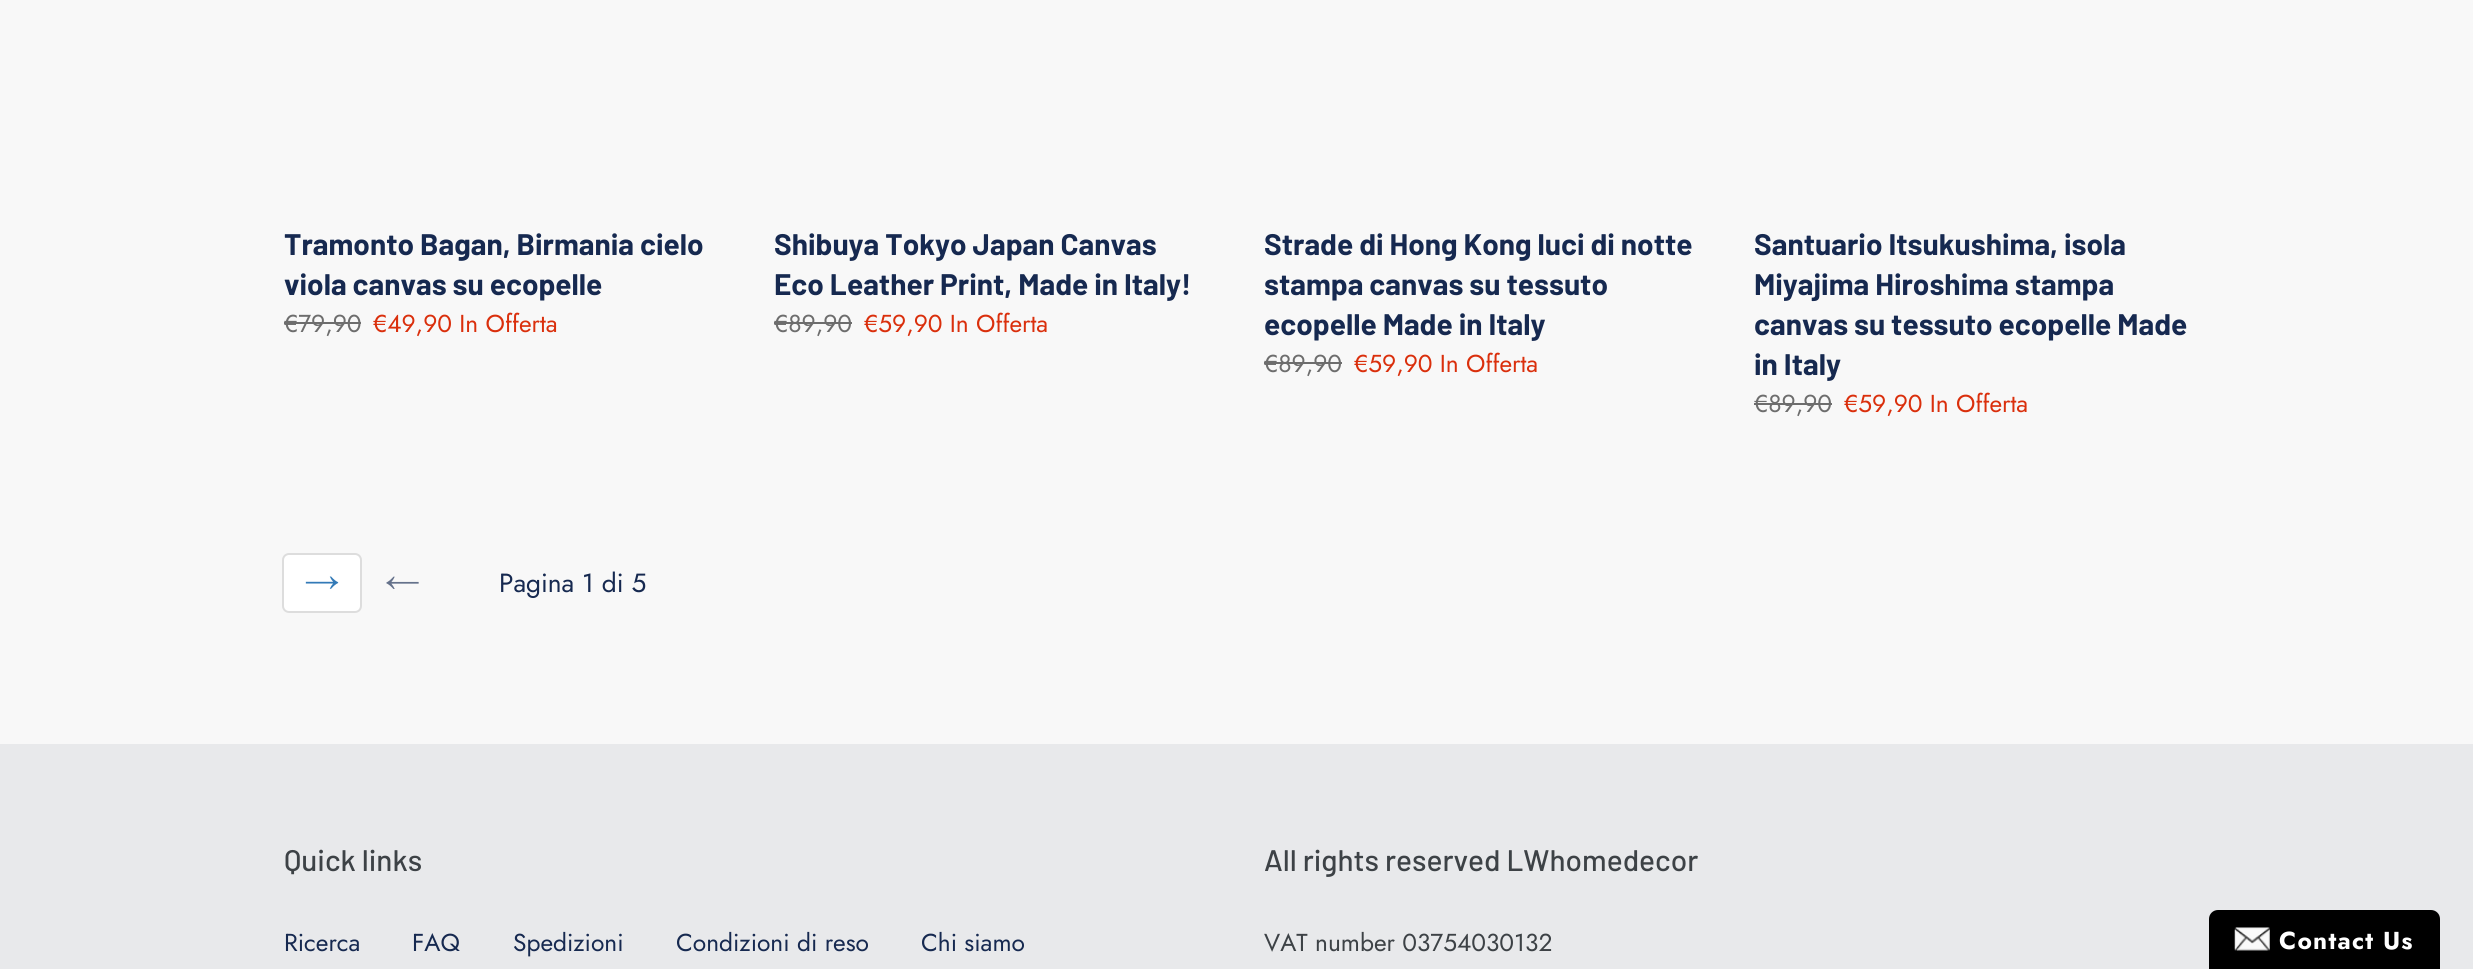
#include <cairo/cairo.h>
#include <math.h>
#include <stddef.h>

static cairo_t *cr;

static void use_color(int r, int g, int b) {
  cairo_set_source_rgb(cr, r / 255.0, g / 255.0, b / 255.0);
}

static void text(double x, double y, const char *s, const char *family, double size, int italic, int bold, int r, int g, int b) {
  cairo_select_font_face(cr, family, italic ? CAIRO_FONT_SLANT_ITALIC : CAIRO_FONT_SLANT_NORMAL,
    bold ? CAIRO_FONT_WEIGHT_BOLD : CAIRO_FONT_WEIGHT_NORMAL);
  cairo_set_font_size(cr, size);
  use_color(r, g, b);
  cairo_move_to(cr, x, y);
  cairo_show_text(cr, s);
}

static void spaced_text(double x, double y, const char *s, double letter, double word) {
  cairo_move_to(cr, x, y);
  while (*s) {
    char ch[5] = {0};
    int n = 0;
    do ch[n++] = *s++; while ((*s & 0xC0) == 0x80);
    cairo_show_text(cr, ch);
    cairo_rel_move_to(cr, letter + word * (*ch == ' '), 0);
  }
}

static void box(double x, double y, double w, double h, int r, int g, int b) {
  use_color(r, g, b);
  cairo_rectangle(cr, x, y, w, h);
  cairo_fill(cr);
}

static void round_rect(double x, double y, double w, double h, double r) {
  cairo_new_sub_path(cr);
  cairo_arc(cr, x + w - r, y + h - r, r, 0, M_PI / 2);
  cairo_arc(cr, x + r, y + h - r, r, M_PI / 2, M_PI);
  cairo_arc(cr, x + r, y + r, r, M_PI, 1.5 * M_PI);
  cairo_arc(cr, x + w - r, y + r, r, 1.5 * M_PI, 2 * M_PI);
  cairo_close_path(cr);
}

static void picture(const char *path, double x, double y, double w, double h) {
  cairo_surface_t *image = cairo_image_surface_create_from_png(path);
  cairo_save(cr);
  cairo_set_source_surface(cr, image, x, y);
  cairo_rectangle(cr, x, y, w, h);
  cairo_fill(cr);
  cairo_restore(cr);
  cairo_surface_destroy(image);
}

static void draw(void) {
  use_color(248, 248, 248);
  cairo_paint(cr);
  box(284, 322, 77, 2, 109, 109, 109);
  box(774, 322, 78, 2, 109, 109, 109);
  box(1264, 362, 78, 2, 109, 109, 109);
  box(1754, 403, 78, 2, 109, 109, 109);
  use_color(255, 255, 255);
  round_rect(283, 554, 78, 58, 6);
  cairo_fill_preserve(cr);
  use_color(221, 221, 221);
  cairo_stroke(cr);
  picture("img_01.png", 305, 576, 34, 13);
  picture("img_02.png", 386, 576, 33, 13);
  box(0, 744, 2473, 225, 232, 233, 235);
  use_color(0, 0, 0);
  cairo_new_path(cr);
  cairo_move_to(cr, 2218, 910);
  cairo_line_to(cr, 2431, 910);
  cairo_curve_to(cr, 2436, 910, 2440, 914, 2440, 919);
  cairo_line_to(cr, 2440, 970);
  cairo_line_to(cr, 2209, 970);
  cairo_line_to(cr, 2209, 919);
  cairo_curve_to(cr, 2209, 914, 2213, 910, 2218, 910);
  cairo_close_path(cr);
  cairo_fill(cr);
  picture("img_03.png", 2234, 927, 36, 24);
  text(284, 255, "Tramonto Bagan, Birmania cielo", "Barlow", 29.75, 0, 1, 22, 41, 80);
  text(284, 295, "viola canvas su ecopelle", "Barlow", 29.75, 0, 1, 22, 41, 80);
  text(284, 332, "€79,90", "Jost", 24.5, 0, 0, 109, 109, 109);
  text(373, 332, "€49,90 In Offerta", "Jost", 24.5, 0, 0, 218, 47, 12);
  text(774, 255, "Shibuya Tokyo Japan Canvas", "Barlow", 29.75, 0, 1, 22, 41, 80);
  text(774, 295, "Eco Leather Print, Made in Italy!", "Barlow", 29.75, 0, 1, 22, 41, 80);
  text(774, 332, "€89,90", "Jost", 24.5, 0, 0, 109, 109, 109);
  text(864, 332, "€59,90 In Offerta", "Jost", 24.5, 0, 0, 218, 47, 12);
  text(1264, 255, "Strade di Hong Kong luci di notte", "Barlow", 29.75, 0, 1, 22, 41, 80);
  text(1264, 295, "stampa canvas su tessuto", "Barlow", 29.75, 0, 1, 22, 41, 80);
  text(1264, 335, "ecopelle Made in Italy", "Barlow", 29.75, 0, 1, 22, 41, 80);
  text(1264, 372, "€89,90", "Jost", 24.5, 0, 0, 109, 109, 109);
  text(1354, 372, "€59,90 In Offerta", "Jost", 24.5, 0, 0, 218, 47, 12);
  text(1754, 255, "Santuario Itsukushima, isola", "Barlow", 29.75, 0, 1, 22, 41, 80);
  text(1754, 295, "Miyajima Hiroshima stampa", "Barlow", 29.75, 0, 1, 22, 41, 80);
  text(1754, 335, "canvas su tessuto ecopelle Made", "Barlow", 29.75, 0, 1, 22, 41, 80);
  text(1754, 375, "in Italy", "Barlow", 29.75, 0, 1, 22, 41, 80);
  text(1754, 412, "€89,90", "Jost", 24.5, 0, 0, 109, 109, 109);
  text(1844, 412, "€59,90 In Offerta", "Jost", 24.5, 0, 0, 218, 47, 12);
  text(499, 592, "Pagina 1 di 5", "Jost", 26.25, 0, 0, 22, 41, 80);
  text(284, 871, "Quick links", "Barlow Medium", 29.75, 0, 0, 61, 66, 70);
  text(284, 951, "Ricerca", "Jost", 24.5, 0, 0, 22, 41, 80);
  text(412, 951, "FAQ", "Jost", 24.5, 0, 0, 22, 41, 80);
  text(513, 951, "Spedizioni", "Jost", 24.5, 0, 0, 22, 41, 80);
  text(676, 951, "Condizioni di reso", "Jost", 24.5, 0, 0, 22, 41, 80);
  text(921, 951, "Chi siamo", "Jost", 24.5, 0, 0, 22, 41, 80);
  text(1264, 871, "All rights reserved LWhomedecor", "Barlow Medium", 29.75, 0, 0, 61, 66, 70);
  text(1264, 951, "VAT number 03754030132", "Jost", 24.5, 0, 0, 61, 66, 70);
  cairo_select_font_face(cr, "Jost", CAIRO_FONT_SLANT_NORMAL, CAIRO_FONT_WEIGHT_BOLD);
  use_color(255, 255, 255);
  spaced_text(2279, 949, "Contact Us", 1.25, 0);
}

int main(void) {
  cairo_surface_t *surface = cairo_image_surface_create(CAIRO_FORMAT_RGB24, 2473, 969);
  cr = cairo_create(surface);
  cairo_font_options_t *options = cairo_font_options_create();
  cairo_font_options_set_hint_metrics(options, CAIRO_HINT_METRICS_OFF);
  cairo_font_options_set_hint_style(options, CAIRO_HINT_STYLE_NONE);
  cairo_set_font_options(cr, options);
  cairo_set_miter_limit(cr, 4);
  draw();
  cairo_surface_write_to_png(surface, "out.png");
  cairo_font_options_destroy(options);
  cairo_destroy(cr);
  cairo_surface_destroy(surface);
  return 0;
}
